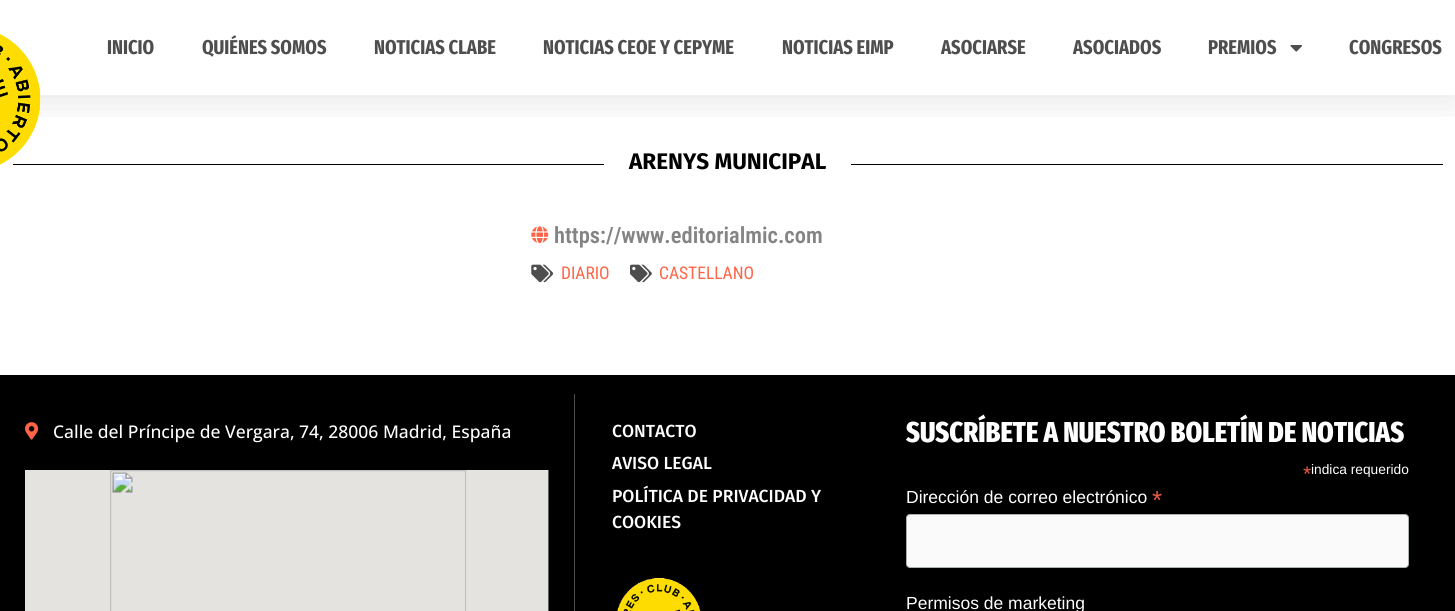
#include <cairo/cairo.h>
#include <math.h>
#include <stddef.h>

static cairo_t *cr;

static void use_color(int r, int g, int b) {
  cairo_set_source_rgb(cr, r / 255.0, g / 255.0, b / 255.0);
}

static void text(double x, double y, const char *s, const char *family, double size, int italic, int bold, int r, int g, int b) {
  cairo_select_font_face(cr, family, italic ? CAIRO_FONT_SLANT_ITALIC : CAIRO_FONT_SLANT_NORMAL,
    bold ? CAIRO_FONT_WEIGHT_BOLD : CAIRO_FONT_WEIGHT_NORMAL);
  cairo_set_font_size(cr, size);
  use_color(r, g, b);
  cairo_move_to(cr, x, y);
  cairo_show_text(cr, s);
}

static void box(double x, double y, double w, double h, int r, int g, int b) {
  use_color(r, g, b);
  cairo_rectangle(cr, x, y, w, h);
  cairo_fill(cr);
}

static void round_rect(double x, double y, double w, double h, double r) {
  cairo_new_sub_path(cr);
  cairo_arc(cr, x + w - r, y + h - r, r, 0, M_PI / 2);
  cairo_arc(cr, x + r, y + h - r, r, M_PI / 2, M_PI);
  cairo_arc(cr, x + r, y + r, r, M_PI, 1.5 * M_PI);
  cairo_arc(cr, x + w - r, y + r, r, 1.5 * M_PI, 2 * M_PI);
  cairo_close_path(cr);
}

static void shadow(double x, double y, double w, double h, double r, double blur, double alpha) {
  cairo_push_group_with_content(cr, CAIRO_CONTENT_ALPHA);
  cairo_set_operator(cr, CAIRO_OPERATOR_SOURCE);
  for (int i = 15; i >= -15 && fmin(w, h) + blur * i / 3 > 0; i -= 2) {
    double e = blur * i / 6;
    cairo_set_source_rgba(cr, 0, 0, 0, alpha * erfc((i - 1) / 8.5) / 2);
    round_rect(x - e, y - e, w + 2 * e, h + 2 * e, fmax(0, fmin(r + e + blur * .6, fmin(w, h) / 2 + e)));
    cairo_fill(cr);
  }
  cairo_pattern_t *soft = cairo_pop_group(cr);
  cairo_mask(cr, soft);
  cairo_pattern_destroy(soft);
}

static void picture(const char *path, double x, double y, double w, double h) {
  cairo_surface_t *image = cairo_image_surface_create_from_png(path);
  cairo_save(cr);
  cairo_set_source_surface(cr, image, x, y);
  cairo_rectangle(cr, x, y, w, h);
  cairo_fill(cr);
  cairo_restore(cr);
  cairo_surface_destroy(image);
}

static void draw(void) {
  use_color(255, 255, 255);
  cairo_paint(cr);
  cairo_save(cr);
  cairo_rectangle(cr, 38, 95, 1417, 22);
  cairo_clip(cr);
  use_color(0, 0, 0);
  shadow(0, 6, 1455, 95, 0, 19, 0.1);
  cairo_restore(cr);
  box(13, 164, 591, 1, 0, 0, 0);
  picture("img_01.png", 0, 34, 41, 131);
  picture("img_02.png", 1290, 45, 12, 7);
  box(851, 164, 592, 1, 0, 0, 0);
  picture("img_03.png", 531, 226, 18, 18);
  picture("img_04.png", 531, 264, 23, 19);
  picture("img_05.png", 630, 264, 22, 19);
  box(0, 375, 1455, 236, 0, 0, 0);
  box(574, 394, 1, 217, 78, 78, 78);
  picture("img_06.png", 25, 422, 14, 18);
  picture("img_07.png", 25, 470, 524, 141);
  picture("img_08.png", 617, 578, 84, 33);
  use_color(250, 250, 250);
  round_rect(906.5, 514.5, 502, 53, 3.5);
  cairo_fill_preserve(cr);
  use_color(171, 176, 178);
  cairo_set_line_width(cr, 1);
  cairo_stroke(cr);
  text(107, 54, "INICIO", "Fira Sans Extra Condensed", 20, 0, 1, 78, 78, 78);
  text(202, 54, "QUIÉNES SOMOS", "Fira Sans Extra Condensed", 20, 0, 1, 78, 78, 78);
  text(374, 54, "NOTICIAS CLABE", "Fira Sans Extra Condensed", 20, 0, 1, 78, 78, 78);
  text(543, 54, "NOTICIAS CEOE Y CEPYME", "Fira Sans Extra Condensed", 20, 0, 1, 78, 78, 78);
  text(782, 54, "NOTICIAS EIMP", "Fira Sans Extra Condensed", 20, 0, 1, 78, 78, 78);
  text(941, 54, "ASOCIARSE", "Fira Sans Extra Condensed", 20, 0, 1, 78, 78, 78);
  text(1073, 54, "ASOCIADOS", "Fira Sans Extra Condensed", 20, 0, 1, 78, 78, 78);
  text(1208, 54, "PREMIOS", "Fira Sans Extra Condensed", 20, 0, 1, 78, 78, 78);
  text(1349, 54, "CONGRESOS", "Fira Sans Extra Condensed", 20, 0, 1, 78, 78, 78);
  text(629, 169, "ARENYS MUNICIPAL", "Fira Sans", 22.5, 0, 1, 0, 0, 0);
  text(554, 243, "https://www.editorialmic.com", "Roboto Condensed SemiBold", 22.5, 0, 0, 132, 132, 132);
  text(561, 279, "DIARIO", "Roboto Condensed", 17.5, 0, 0, 255, 100, 70);
  text(659, 279, "CASTELLANO", "Roboto Condensed", 17.5, 0, 0, 255, 100, 70);
  text(53, 438, "Calle del Príncipe de Vergara, 74, 28006 Madrid, España", "Open Sans Medium", 17.5, 0, 0, 255, 255, 255);
  text(612, 437, "CONTACTO", "Fira Sans Medium", 17.5, 0, 0, 255, 255, 255);
  text(612, 469, "AVISO LEGAL", "Fira Sans Medium", 17.5, 0, 0, 255, 255, 255);
  text(612, 502, "POLÍTICA DE PRIVACIDAD Y", "Fira Sans Medium", 17.5, 0, 0, 255, 255, 255);
  text(612, 528, "COOKIES", "Fira Sans Medium", 17.5, 0, 0, 255, 255, 255);
  text(906, 442, "SUSCRÍBETE A NUESTRO BOLETÍN DE NOTICIAS", "Fira Sans Extra Condensed ExtraBold", 28.75, 0, 0, 255, 255, 255);
  text(1303, 481, "*", "Liberation Sans", 21, 0, 0, 232, 92, 65);
  text(1311, 474, "indica requerido", "Liberation Sans", 13.75, 0, 0, 255, 255, 255);
  text(906, 503, "Dirección de correo electrónico", "Liberation Sans", 17.5, 0, 0, 255, 255, 255);
  text(1152, 509, "*", "Liberation Sans", 26, 0, 0, 232, 92, 65);
  text(906, 609, "Permisos de marketing", "Liberation Sans", 17.5, 0, 0, 255, 255, 255);
}

int main(void) {
  cairo_surface_t *surface = cairo_image_surface_create(CAIRO_FORMAT_RGB24, 1455, 611);
  cr = cairo_create(surface);
  cairo_font_options_t *options = cairo_font_options_create();
  cairo_font_options_set_hint_metrics(options, CAIRO_HINT_METRICS_OFF);
  cairo_font_options_set_hint_style(options, CAIRO_HINT_STYLE_NONE);
  cairo_set_font_options(cr, options);
  cairo_set_miter_limit(cr, 4);
  draw();
  cairo_surface_write_to_png(surface, "out.png");
  cairo_font_options_destroy(options);
  cairo_destroy(cr);
  cairo_surface_destroy(surface);
  return 0;
}
